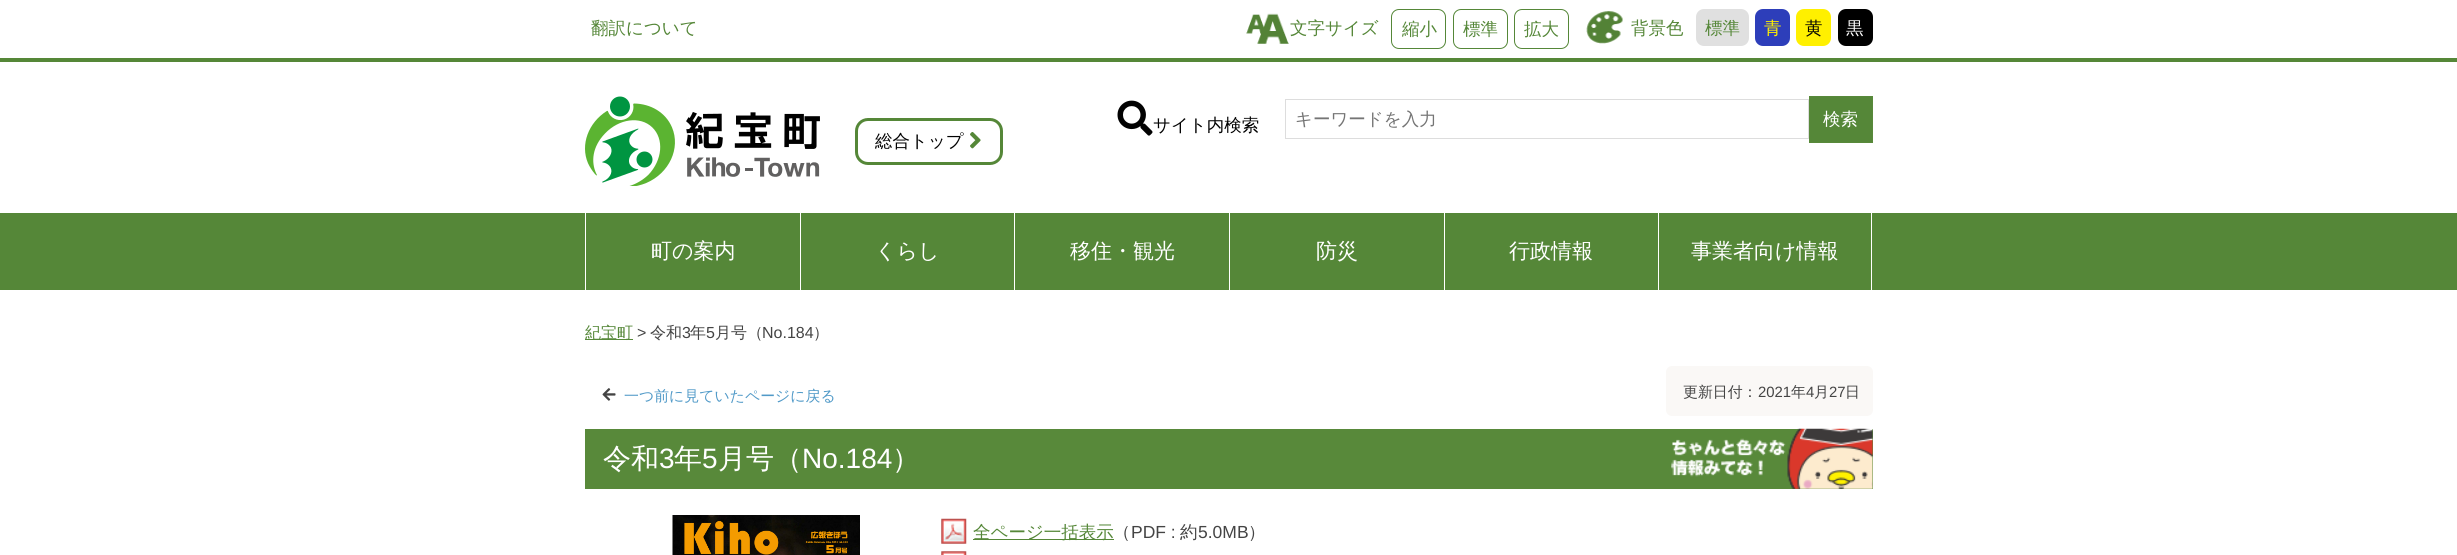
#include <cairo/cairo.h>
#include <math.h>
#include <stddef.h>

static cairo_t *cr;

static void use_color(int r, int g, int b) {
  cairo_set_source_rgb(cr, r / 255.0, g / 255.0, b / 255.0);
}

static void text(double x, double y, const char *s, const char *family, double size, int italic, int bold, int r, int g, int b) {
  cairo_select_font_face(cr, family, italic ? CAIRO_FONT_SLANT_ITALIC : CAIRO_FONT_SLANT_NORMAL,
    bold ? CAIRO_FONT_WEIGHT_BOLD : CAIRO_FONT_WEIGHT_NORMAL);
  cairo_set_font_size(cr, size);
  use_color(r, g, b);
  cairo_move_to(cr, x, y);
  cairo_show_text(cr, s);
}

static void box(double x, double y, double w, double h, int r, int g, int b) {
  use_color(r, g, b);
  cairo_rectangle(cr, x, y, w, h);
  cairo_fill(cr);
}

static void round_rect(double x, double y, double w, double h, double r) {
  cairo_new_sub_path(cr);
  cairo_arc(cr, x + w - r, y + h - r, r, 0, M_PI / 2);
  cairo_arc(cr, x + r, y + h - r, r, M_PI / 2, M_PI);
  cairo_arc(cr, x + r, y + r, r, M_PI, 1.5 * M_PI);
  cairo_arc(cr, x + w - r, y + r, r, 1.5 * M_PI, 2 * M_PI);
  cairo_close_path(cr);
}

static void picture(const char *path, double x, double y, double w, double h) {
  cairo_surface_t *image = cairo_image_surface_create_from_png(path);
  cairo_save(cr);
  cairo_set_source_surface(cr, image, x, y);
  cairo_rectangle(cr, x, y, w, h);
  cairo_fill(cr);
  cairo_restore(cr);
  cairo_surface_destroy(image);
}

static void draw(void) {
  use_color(255, 255, 255);
  cairo_paint(cr);
  box(0, 58, 2457, 4, 85, 135, 56);
  picture("img_01.png", 1246, 13, 43, 31);
  round_rect(1391.5, 9.5, 54, 39, 7.5);
  cairo_set_line_width(cr, 1);
  cairo_stroke(cr);
  round_rect(1453.5, 9.5, 54, 39, 7.5);
  cairo_stroke(cr);
  round_rect(1514.5, 9.5, 54, 39, 7.5);
  cairo_stroke(cr);
  picture("img_02.png", 1586, 11, 37, 33);
  use_color(224, 224, 224);
  round_rect(1696, 9, 53, 37, 8);
  cairo_fill(cr);
  use_color(45, 62, 186);
  round_rect(1755, 9, 35, 37, 8);
  cairo_fill(cr);
  use_color(255, 240, 0);
  round_rect(1796, 9, 35, 37, 8);
  cairo_fill(cr);
  use_color(0, 0, 0);
  round_rect(1838, 9, 35, 37, 8);
  cairo_fill(cr);
  picture("img_03.png", 1117, 100, 36, 36);
  cairo_rectangle(cr, 1285.5, 99.5, 523, 39);
  use_color(221, 221, 221);
  cairo_stroke(cr);
  use_color(85, 135, 56);
  cairo_rectangle(cr, 1809.5, 96.5, 63, 46);
  cairo_fill_preserve(cr);
  use_color(88, 137, 58);
  cairo_stroke(cr);
  picture("img_04.png", 585, 96, 235, 90);
  round_rect(856.5, 119.5, 145, 44, 11.5);
  use_color(85, 135, 56);
  cairo_set_line_width(cr, 3);
  cairo_stroke(cr);
  picture("img_05.png", 970, 132, 11, 17);
  box(0, 213, 2457, 77, 85, 135, 56);
  box(585, 213, 1, 77, 255, 255, 255);
  box(800, 213, 1, 77, 255, 255, 255);
  box(1014, 213, 1, 77, 255, 255, 255);
  box(1229, 213, 1, 77, 255, 255, 255);
  box(1444, 213, 1, 77, 255, 255, 255);
  box(1871, 213, 1, 77, 255, 255, 255);
  box(1658, 213, 1, 77, 255, 255, 255);
  box(585, 339, 48, 1, 88, 137, 58);
  picture("img_06.png", 602, 388, 14, 13);
  use_color(250, 248, 246);
  round_rect(1666, 366, 207, 50, 6);
  cairo_fill(cr);
  box(585, 429, 1288, 60, 88, 137, 58);
  picture("img_07.png", 1671, 428, 202, 61);
  picture("img_08.png", 672, 515, 188, 40);
  picture("img_09.png", 941, 518, 26, 26);
  box(973, 539, 141, 1, 84, 134, 54);
  picture("img_10.png", 941, 551, 26, 4);
  text(591, 34, "翻訳について", "WenQuanYi Zen Hei Medium", 17.5, 0, 0, 85, 135, 56);
  text(1290, 34, "文字サイズ", "WenQuanYi Zen Hei Medium", 17.5, 0, 0, 85, 135, 56);
  text(1402, 35, "縮小", "WenQuanYi Zen Hei Medium", 17.5, 0, 0, 85, 135, 56);
  text(1463, 35, "標準", "WenQuanYi Zen Hei Medium", 17.5, 0, 0, 85, 135, 56);
  text(1524, 35, "拡大", "WenQuanYi Zen Hei Medium", 17.5, 0, 0, 85, 135, 56);
  text(1631, 34, "背景色", "WenQuanYi Zen Hei Medium", 17.5, 0, 0, 85, 135, 56);
  text(1705, 34, "標準", "WenQuanYi Zen Hei Medium", 17.5, 0, 0, 85, 135, 56);
  text(1764, 34, "青", "WenQuanYi Zen Hei Medium", 17.5, 0, 0, 255, 240, 0);
  text(1805, 34, "黄", "WenQuanYi Zen Hei Medium", 17.5, 0, 0, 2, 2, 2);
  text(1846, 34, "黒", "WenQuanYi Zen Hei Medium", 17.5, 0, 0, 255, 255, 255);
  text(1153, 131, "サイト内検索", "WenQuanYi Zen Hei Medium", 17.5, 0, 0, 2, 2, 2);
  text(1295, 125, "キーワードを入力", "WenQuanYi Zen Hei Medium", 17.5, 0, 0, 117, 117, 117);
  text(1823, 125, "検索", "WenQuanYi Zen Hei Medium", 17.5, 0, 0, 255, 255, 255);
  text(875, 147, "総合トップ", "WenQuanYi Zen Hei Medium", 17.5, 0, 0, 2, 2, 2);
  text(651, 258, "町の案内", "WenQuanYi Zen Hei Medium", 21, 0, 0, 255, 255, 255);
  text(875, 258, "くらし", "WenQuanYi Zen Hei Medium", 21, 0, 0, 255, 255, 255);
  text(1070, 258, "移住・観光", "WenQuanYi Zen Hei Medium", 21, 0, 0, 255, 255, 255);
  text(1316, 258, "防災", "WenQuanYi Zen Hei Medium", 21, 0, 0, 255, 255, 255);
  text(1509, 258, "行政情報", "WenQuanYi Zen Hei Medium", 21, 0, 0, 255, 255, 255);
  text(1691, 258, "事業者向け情報", "WenQuanYi Zen Hei Medium", 21, 0, 0, 255, 255, 255);
  text(585, 338, "紀宝町", "WenQuanYi Zen Hei Medium", 16, 0, 0, 85, 135, 56);
  text(637, 338, ">", "Liberation Sans", 16, 0, 0, 68, 68, 68);
  text(650, 338, "令和", "WenQuanYi Zen Hei Medium", 16, 0, 0, 68, 68, 68);
  text(682, 338, "3", "Liberation Sans", 16, 0, 0, 68, 68, 68);
  text(690, 338, "年", "WenQuanYi Zen Hei Medium", 16, 0, 0, 68, 68, 68);
  text(706, 338, "5", "Liberation Sans", 16, 0, 0, 68, 68, 68);
  text(715, 338, "月号（", "WenQuanYi Zen Hei Medium", 16, 0, 0, 68, 68, 68);
  text(762, 338, "No.184", "Liberation Sans", 16, 0, 0, 68, 68, 68);
  text(813, 338, "）", "WenQuanYi Zen Hei Medium", 16, 0, 0, 68, 68, 68);
  text(624, 401, "一つ前に見ていたページに戻る", "WenQuanYi Zen Hei Medium", 14.9, 0, 0, 81, 154, 200);
  text(1683, 397, "更新日付：", "WenQuanYi Zen Hei Medium", 14.9, 0, 0, 68, 68, 68);
  text(1758, 397, "2021", "Liberation Sans", 14.9, 0, 0, 68, 68, 68);
  text(1791, 397, "年", "WenQuanYi Zen Hei Medium", 14.9, 0, 0, 68, 68, 68);
  text(1806, 397, "4", "Liberation Sans", 14.9, 0, 0, 68, 68, 68);
  text(1814, 397, "月", "WenQuanYi Zen Hei Medium", 14.9, 0, 0, 68, 68, 68);
  text(1829, 397, "27", "Liberation Sans", 14.9, 0, 0, 68, 68, 68);
  text(1845, 397, "日", "WenQuanYi Zen Hei Medium", 14.9, 0, 0, 68, 68, 68);
  text(603, 468, "令和", "WenQuanYi Zen Hei Medium", 28, 0, 0, 255, 255, 255);
  text(659, 468, "3", "Liberation Sans", 28, 0, 0, 255, 255, 255);
  text(674, 468, "年", "WenQuanYi Zen Hei Medium", 28, 0, 0, 255, 255, 255);
  text(702, 468, "5", "Liberation Sans", 28, 0, 0, 255, 255, 255);
  text(718, 468, "月号（", "WenQuanYi Zen Hei Medium", 28, 0, 0, 255, 255, 255);
  text(802, 468, "No.184", "Liberation Sans", 28, 0, 0, 255, 255, 255);
  text(892, 468, "）", "WenQuanYi Zen Hei Medium", 28, 0, 0, 255, 255, 255);
  text(973, 538, "全ページ一括表示", "WenQuanYi Zen Hei Medium", 17.5, 0, 0, 85, 135, 56);
  text(1113, 538, "（", "WenQuanYi Zen Hei Medium", 17.5, 0, 0, 68, 68, 68);
  text(1131, 538, "PDF :", "Liberation Sans", 17.5, 0, 0, 68, 68, 68);
  text(1180, 538, "約", "WenQuanYi Zen Hei Medium", 17.5, 0, 0, 68, 68, 68);
  text(1198, 538, "5.0MB", "Liberation Sans", 17.5, 0, 0, 68, 68, 68);
  text(1248, 538, "）", "WenQuanYi Zen Hei Medium", 17.5, 0, 0, 68, 68, 68);
}

int main(void) {
  cairo_surface_t *surface = cairo_image_surface_create(CAIRO_FORMAT_RGB24, 2457, 555);
  cr = cairo_create(surface);
  cairo_font_options_t *options = cairo_font_options_create();
  cairo_font_options_set_hint_metrics(options, CAIRO_HINT_METRICS_OFF);
  cairo_font_options_set_hint_style(options, CAIRO_HINT_STYLE_NONE);
  cairo_set_font_options(cr, options);
  cairo_set_miter_limit(cr, 4);
  draw();
  cairo_surface_write_to_png(surface, "out.png");
  cairo_font_options_destroy(options);
  cairo_destroy(cr);
  cairo_surface_destroy(surface);
  return 0;
}
